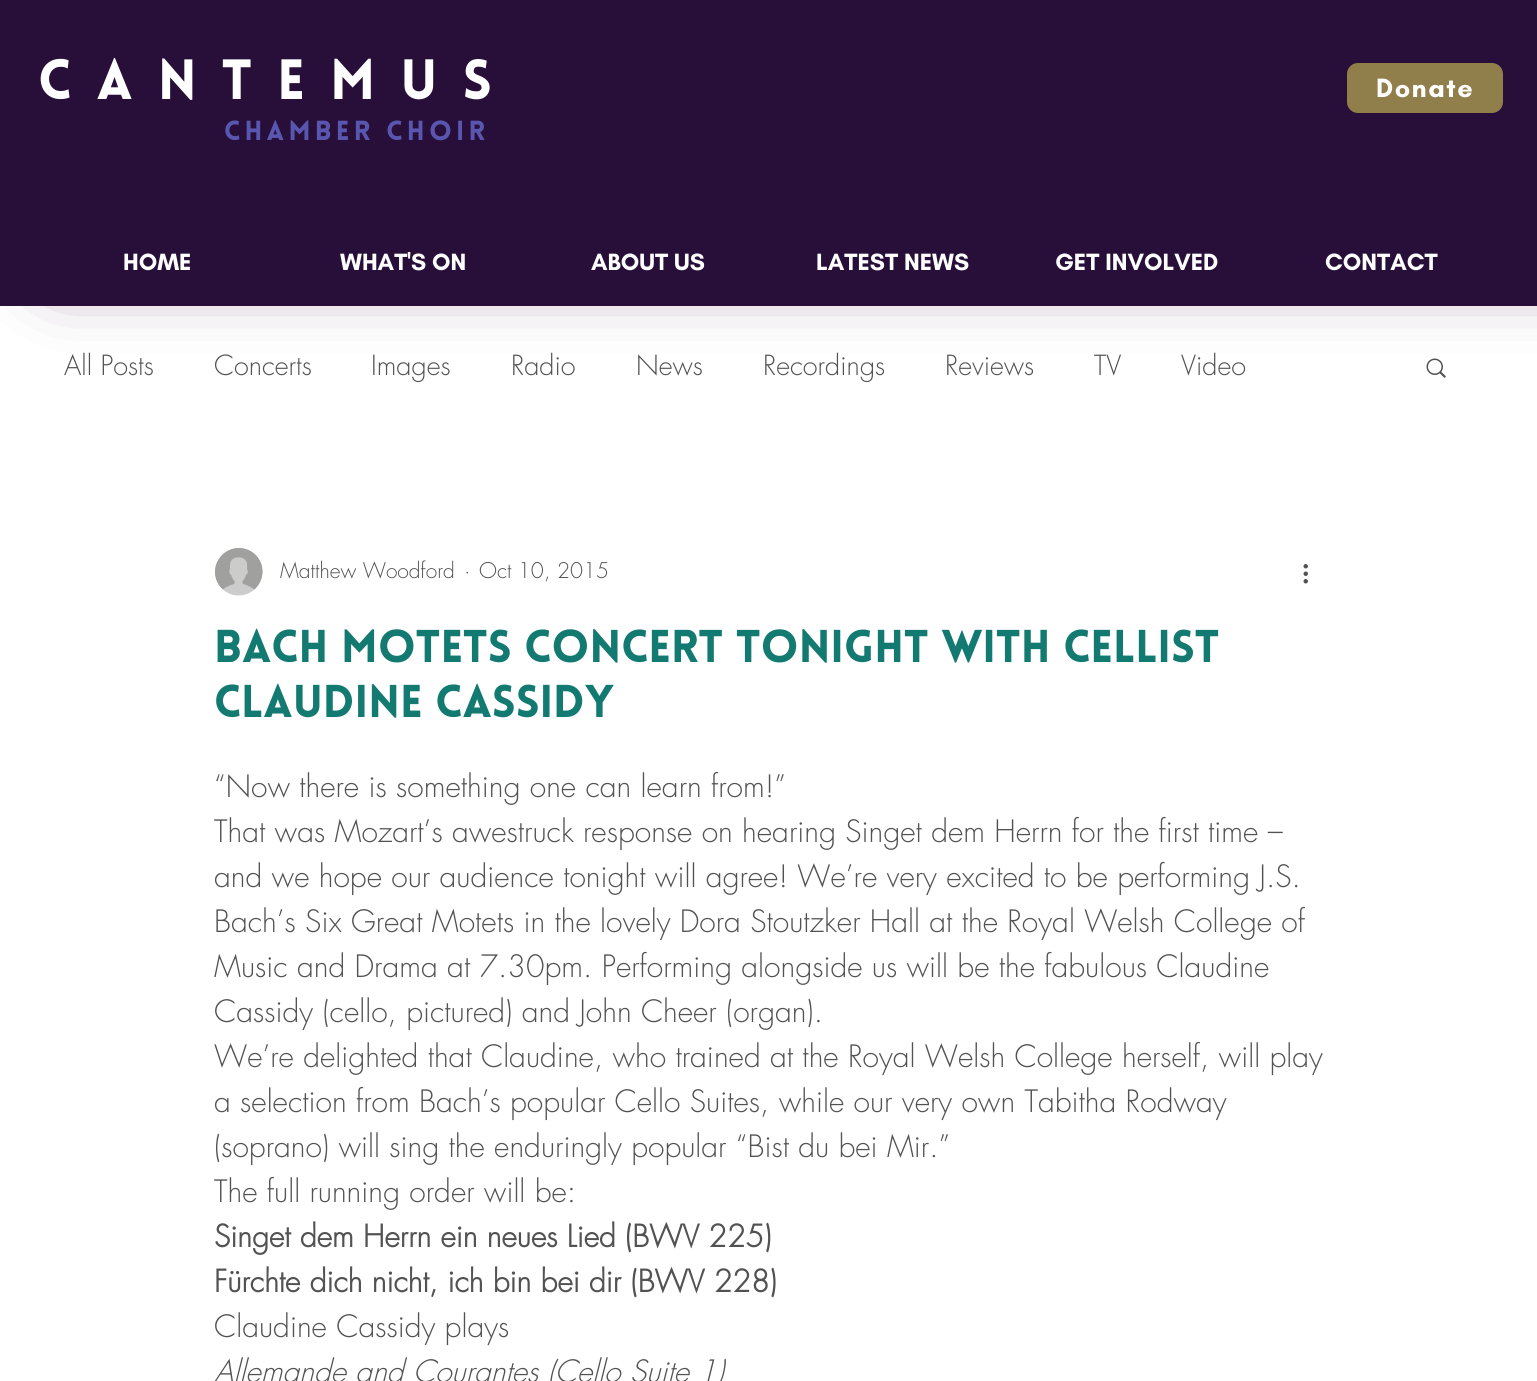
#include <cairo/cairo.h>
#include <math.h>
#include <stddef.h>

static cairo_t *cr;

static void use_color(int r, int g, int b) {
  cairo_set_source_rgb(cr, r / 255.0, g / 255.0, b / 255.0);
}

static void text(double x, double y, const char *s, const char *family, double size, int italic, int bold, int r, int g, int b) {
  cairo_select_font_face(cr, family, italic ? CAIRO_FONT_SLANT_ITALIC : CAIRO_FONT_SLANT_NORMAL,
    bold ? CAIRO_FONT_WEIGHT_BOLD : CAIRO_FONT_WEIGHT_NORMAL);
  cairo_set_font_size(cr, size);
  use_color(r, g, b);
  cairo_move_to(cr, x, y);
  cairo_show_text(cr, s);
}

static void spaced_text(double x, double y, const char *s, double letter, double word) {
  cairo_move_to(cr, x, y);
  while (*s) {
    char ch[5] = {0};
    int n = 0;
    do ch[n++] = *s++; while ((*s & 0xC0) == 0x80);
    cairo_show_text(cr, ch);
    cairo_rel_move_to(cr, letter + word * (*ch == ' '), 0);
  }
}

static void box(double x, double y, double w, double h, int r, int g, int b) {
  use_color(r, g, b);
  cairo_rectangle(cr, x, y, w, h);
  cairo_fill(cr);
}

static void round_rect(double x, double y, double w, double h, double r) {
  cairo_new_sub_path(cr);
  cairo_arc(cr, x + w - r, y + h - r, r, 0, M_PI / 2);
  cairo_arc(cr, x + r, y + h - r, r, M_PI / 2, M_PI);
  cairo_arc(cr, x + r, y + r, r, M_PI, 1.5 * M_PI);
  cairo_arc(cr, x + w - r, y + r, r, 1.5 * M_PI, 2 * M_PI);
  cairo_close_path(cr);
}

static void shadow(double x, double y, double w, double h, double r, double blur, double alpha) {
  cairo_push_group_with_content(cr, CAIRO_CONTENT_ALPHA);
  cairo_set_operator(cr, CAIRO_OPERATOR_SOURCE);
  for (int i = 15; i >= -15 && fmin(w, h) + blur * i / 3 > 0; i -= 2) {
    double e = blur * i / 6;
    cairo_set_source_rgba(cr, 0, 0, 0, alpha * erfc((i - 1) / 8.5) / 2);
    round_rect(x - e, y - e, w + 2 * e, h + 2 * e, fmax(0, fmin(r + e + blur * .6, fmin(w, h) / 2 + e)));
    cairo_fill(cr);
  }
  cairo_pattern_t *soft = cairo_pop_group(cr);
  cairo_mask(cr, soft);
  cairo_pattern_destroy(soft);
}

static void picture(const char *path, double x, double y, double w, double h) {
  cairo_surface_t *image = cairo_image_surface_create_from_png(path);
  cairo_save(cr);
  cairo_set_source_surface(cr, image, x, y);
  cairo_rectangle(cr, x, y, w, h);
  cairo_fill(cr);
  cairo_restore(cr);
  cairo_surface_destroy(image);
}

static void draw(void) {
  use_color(255, 255, 255);
  cairo_paint(cr);
  picture("img_01.png", 1426, 358, 20, 20);
  use_color(53, 0, 61);
  shadow(59, -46, 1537, 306, 0, 37.5, 1);
  box(0, 0, 1537, 306, 39, 15, 58);
  use_color(145, 127, 75);
  round_rect(1347, 63, 156, 50, 11);
  cairo_fill(cr);
  picture("img_02.png", 215, 548, 48, 48);
  picture("img_03.png", 1303, 564, 5, 20);
  cairo_select_font_face(cr, "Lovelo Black", CAIRO_FONT_SLANT_NORMAL, CAIRO_FONT_WEIGHT_NORMAL);
  cairo_set_font_size(cr, 55.5);
  use_color(255, 255, 255);
  spaced_text(38, 99, "CANTEMUS", 25, 0);
  cairo_set_font_size(cr, 27);
  use_color(89, 86, 176);
  spaced_text(224, 140, "CHAMBER CHOIR", 4.25, 0);
  cairo_select_font_face(cr, "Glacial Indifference", CAIRO_FONT_SLANT_NORMAL, CAIRO_FONT_WEIGHT_BOLD);
  use_color(255, 255, 255);
  spaced_text(1376, 97, "Donate", 1.5, 0);
  text(123, 270, "HOME", "Glacial Indifference", 24, 0, 1, 255, 255, 255);
  text(340, 270, "WHAT'S ON", "Glacial Indifference", 24, 0, 1, 255, 255, 255);
  text(591, 270, "ABOUT US", "Glacial Indifference", 24, 0, 1, 255, 255, 255);
  text(816, 270, "LATEST NEWS", "Glacial Indifference", 24, 0, 1, 255, 255, 255);
  text(1055, 270, "GET INVOLVED", "Glacial Indifference", 24, 0, 1, 255, 255, 255);
  text(1325, 270, "CONTACT", "Glacial Indifference", 24, 0, 1, 255, 255, 255);
  text(64, 375, "All Posts", "futura Light", 27, 0, 0, 82, 82, 82);
  text(214, 375, "Concerts", "futura Light", 27, 0, 0, 82, 82, 82);
  text(371, 375, "Images", "futura Light", 27, 0, 0, 82, 82, 82);
  text(511, 375, "Radio", "futura Light", 27, 0, 0, 82, 82, 82);
  text(636, 375, "News", "futura Light", 27, 0, 0, 82, 82, 82);
  text(763, 375, "Recordings", "futura Light", 27, 0, 0, 82, 82, 82);
  text(945, 375, "Reviews", "futura Light", 27, 0, 0, 82, 82, 82);
  text(1094, 375, "TV", "futura Light", 27, 0, 0, 82, 82, 82);
  text(1181, 375, "Video", "futura Light", 27, 0, 0, 82, 82, 82);
  text(280, 578, "Matthew Woodford", "futura Light", 21, 0, 0, 82, 82, 82);
  text(464, 578, "·", "futura Light", 21, 0, 0, 82, 82, 82);
  text(479, 578, "Oct 10, 2015", "futura Light", 21, 0, 0, 82, 82, 82);
  text(214, 662, "Bach Motets concert tonight with cellist", "Lovelo Black", 45, 0, 0, 19, 122, 114);
  text(214, 717, "Claudine Cassidy", "Lovelo Black", 45, 0, 0, 19, 122, 114);
  text(214, 797, "“Now there is something one can learn from!”", "futura Light", 30, 0, 0, 82, 82, 82);
  text(214, 842, "That was Mozart’s awestruck response on hearing Singet dem Herrn for the first time –", "futura Light", 30, 0, 0, 82, 82, 82);
  text(214, 887, "and we hope our audience tonight will agree! We’re very excited to be performing J.S.", "futura Light", 30, 0, 0, 82, 82, 82);
  text(214, 932, "Bach’s Six Great Motets in the lovely Dora Stoutzker Hall at the Royal Welsh College of", "futura Light", 30, 0, 0, 82, 82, 82);
  text(214, 977, "Music and Drama at 7.30pm. Performing alongside us will be the fabulous Claudine", "futura Light", 30, 0, 0, 82, 82, 82);
  text(214, 1022, "Cassidy (cello, pictured) and John Cheer (organ).", "futura Light", 30, 0, 0, 82, 82, 82);
  text(214, 1067, "We’re delighted that Claudine, who trained at the Royal Welsh College herself, will play", "futura Light", 30, 0, 0, 82, 82, 82);
  text(214, 1112, "a selection from Bach’s popular Cello Suites, while our very own Tabitha Rodway", "futura Light", 30, 0, 0, 82, 82, 82);
  text(214, 1157, "(soprano) will sing the enduringly popular “Bist du bei Mir.”", "futura Light", 30, 0, 0, 82, 82, 82);
  text(214, 1202, "The full running order will be:", "futura Light", 30, 0, 0, 82, 82, 82);
  text(214, 1247, "Singet dem Herrn ein neues Lied (BWV 225)", "futura", 30, 0, 1, 82, 82, 82);
  text(214, 1292, "Fürchte dich nicht, ich bin bei dir (BWV 228)", "futura", 30, 0, 1, 82, 82, 82);
  text(214, 1337, "Claudine Cassidy plays", "futura Light", 30, 0, 0, 82, 82, 82);
  text(214, 1382, "Allemande and Courantes (Cello Suite 1)", "futura Light", 30, 1, 0, 82, 82, 82);
}

int main(void) {
  cairo_surface_t *surface = cairo_image_surface_create(CAIRO_FORMAT_RGB24, 1537, 1381);
  cr = cairo_create(surface);
  cairo_font_options_t *options = cairo_font_options_create();
  cairo_font_options_set_hint_metrics(options, CAIRO_HINT_METRICS_OFF);
  cairo_font_options_set_hint_style(options, CAIRO_HINT_STYLE_NONE);
  cairo_set_font_options(cr, options);
  cairo_set_miter_limit(cr, 4);
  draw();
  cairo_surface_write_to_png(surface, "out.png");
  cairo_font_options_destroy(options);
  cairo_destroy(cr);
  cairo_surface_destroy(surface);
  return 0;
}
